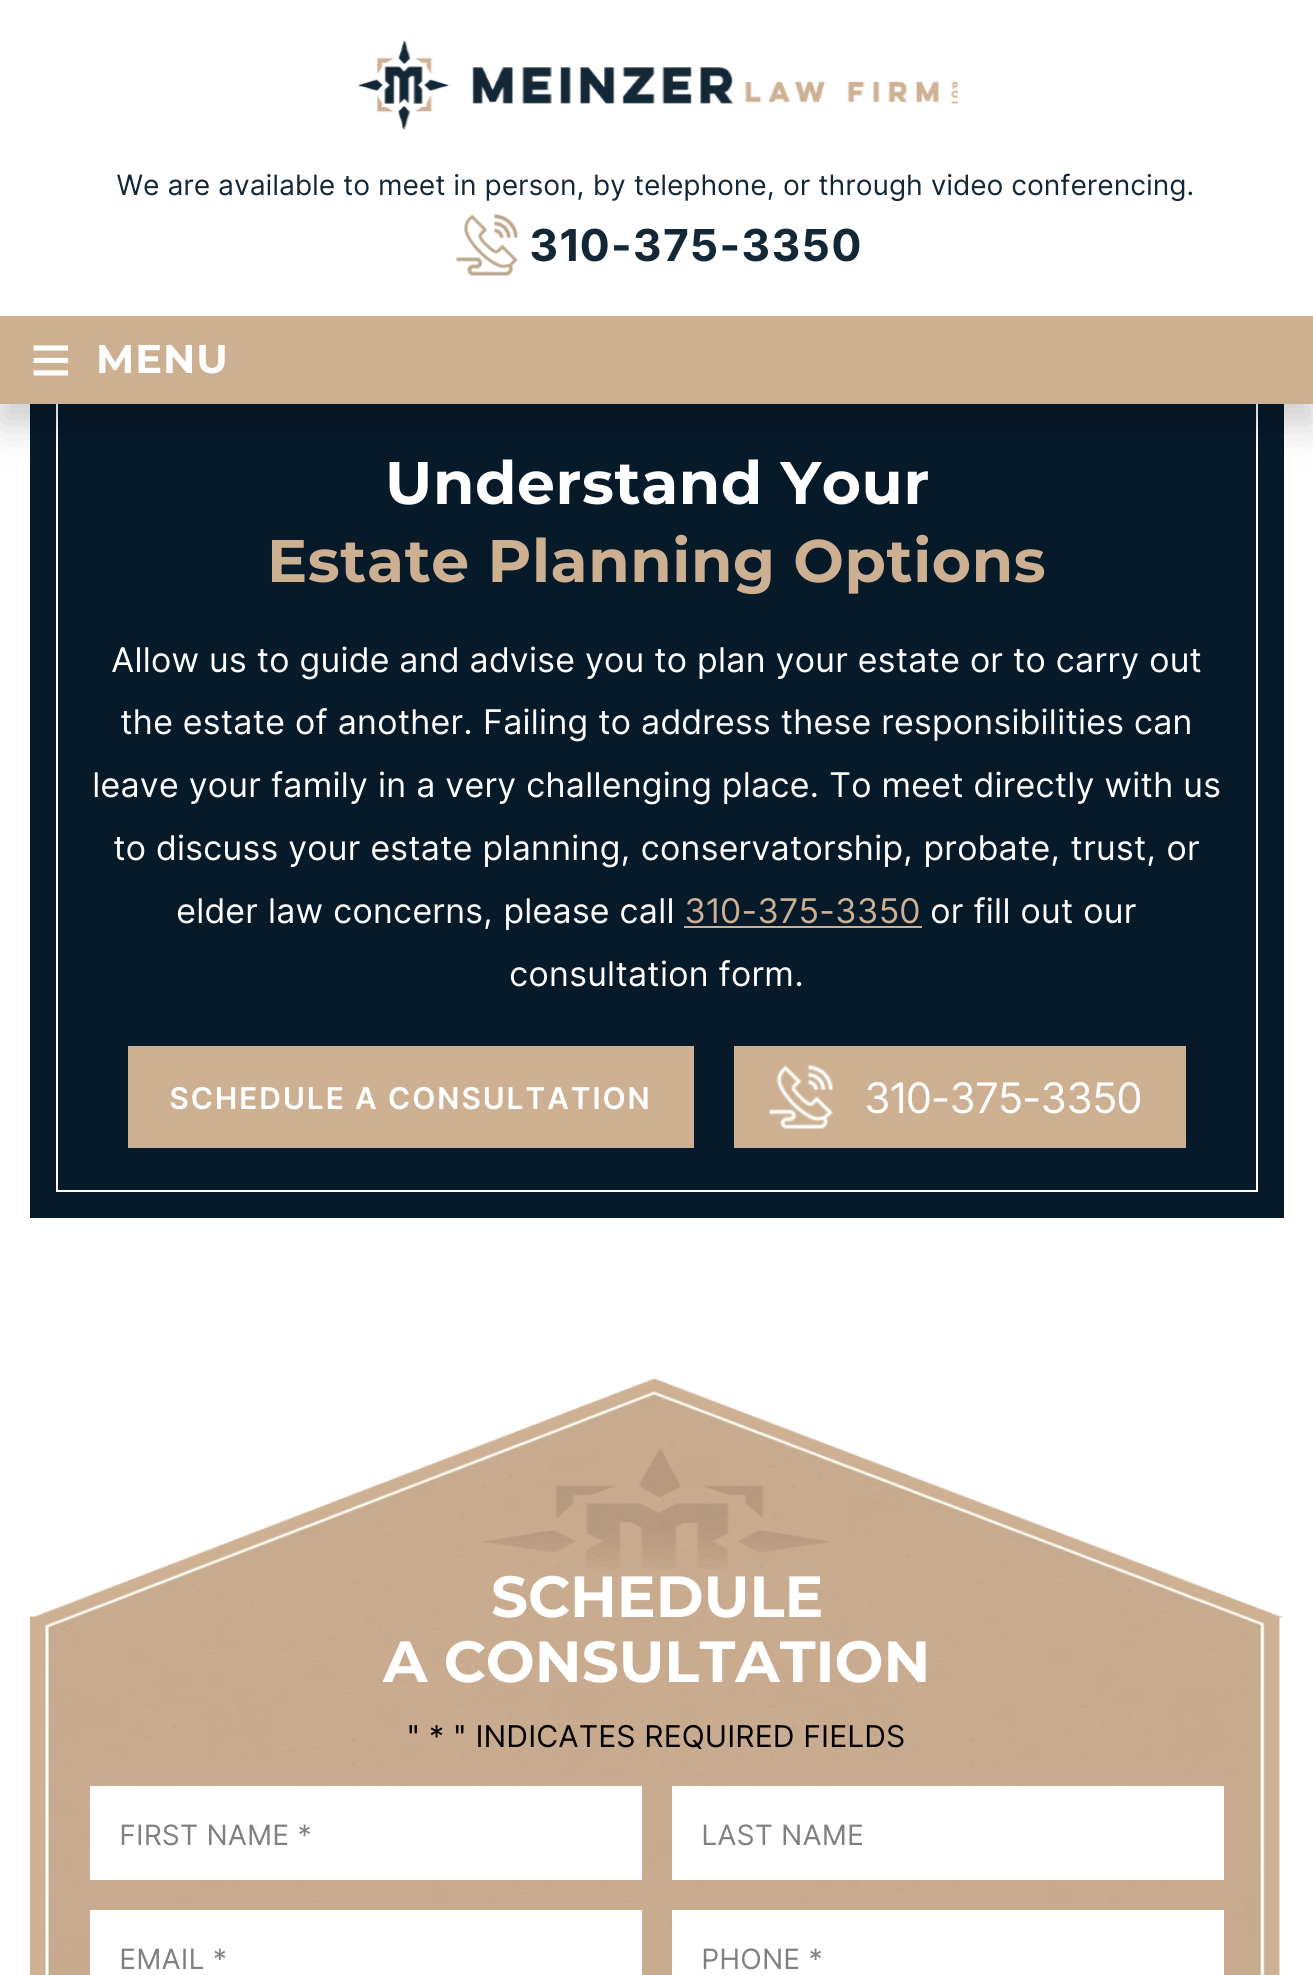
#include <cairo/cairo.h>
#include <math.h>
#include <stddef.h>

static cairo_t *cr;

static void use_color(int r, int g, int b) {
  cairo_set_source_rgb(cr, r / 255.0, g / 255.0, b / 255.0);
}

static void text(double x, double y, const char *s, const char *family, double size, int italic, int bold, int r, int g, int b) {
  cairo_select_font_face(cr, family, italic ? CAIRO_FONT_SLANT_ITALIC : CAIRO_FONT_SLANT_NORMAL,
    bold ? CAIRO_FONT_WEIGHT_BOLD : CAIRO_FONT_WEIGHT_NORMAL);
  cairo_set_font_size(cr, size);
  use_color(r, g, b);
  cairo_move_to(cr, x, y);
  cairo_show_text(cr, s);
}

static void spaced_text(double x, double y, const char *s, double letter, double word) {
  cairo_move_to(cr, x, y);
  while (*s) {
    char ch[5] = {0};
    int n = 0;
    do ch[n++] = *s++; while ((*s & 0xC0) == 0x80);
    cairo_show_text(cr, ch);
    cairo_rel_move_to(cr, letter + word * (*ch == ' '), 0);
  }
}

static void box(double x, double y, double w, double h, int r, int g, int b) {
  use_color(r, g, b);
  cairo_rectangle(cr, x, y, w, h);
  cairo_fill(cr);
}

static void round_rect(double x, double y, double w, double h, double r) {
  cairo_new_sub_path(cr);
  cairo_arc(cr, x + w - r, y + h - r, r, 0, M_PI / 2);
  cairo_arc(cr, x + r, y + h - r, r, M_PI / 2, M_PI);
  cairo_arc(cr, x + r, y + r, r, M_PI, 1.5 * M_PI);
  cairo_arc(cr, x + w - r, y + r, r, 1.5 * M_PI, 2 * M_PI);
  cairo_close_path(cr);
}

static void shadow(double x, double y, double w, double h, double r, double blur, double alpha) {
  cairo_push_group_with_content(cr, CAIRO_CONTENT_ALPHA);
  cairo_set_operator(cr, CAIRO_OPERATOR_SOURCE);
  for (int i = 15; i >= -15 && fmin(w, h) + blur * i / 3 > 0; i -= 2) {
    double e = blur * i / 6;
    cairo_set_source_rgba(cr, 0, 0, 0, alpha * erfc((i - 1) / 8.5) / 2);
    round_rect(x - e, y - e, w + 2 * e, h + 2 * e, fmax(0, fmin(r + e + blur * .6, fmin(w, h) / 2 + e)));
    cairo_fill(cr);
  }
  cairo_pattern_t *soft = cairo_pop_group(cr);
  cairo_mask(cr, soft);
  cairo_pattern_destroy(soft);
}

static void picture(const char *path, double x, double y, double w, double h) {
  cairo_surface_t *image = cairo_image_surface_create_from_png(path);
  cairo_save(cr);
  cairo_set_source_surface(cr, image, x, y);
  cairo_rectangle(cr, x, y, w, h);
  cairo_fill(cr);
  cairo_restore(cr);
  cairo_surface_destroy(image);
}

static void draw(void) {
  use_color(255, 255, 255);
  cairo_paint(cr);
  box(30, 404, 1254, 814, 6, 26, 42);
  box(684, 926, 238, 2, 205, 176, 146);
  box(128, 1046, 566, 102, 205, 176, 146);
  cairo_rectangle(cr, 57, 401, 1200, 790);
  use_color(255, 255, 255);
  cairo_stroke(cr);
  use_color(0, 0, 0);
  shadow(0, 20, 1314, 404, 0, 20, 0.2);
  box(0, 0, 1313, 316, 255, 255, 255);
  picture("img_01.png", 358, 40, 600, 90);
  picture("img_02.png", 456, 214, 62, 62);
  box(0, 316, 1313, 88, 205, 176, 146);
  box(734, 1046, 452, 102, 205, 176, 146);
  picture("img_03.png", 769, 1065, 64, 64);
  picture("img_04.png", 30, 1378, 1253, 597);
  picture("img_05.png", 484, 1448, 346, 121);
  box(90, 1786, 552, 94, 255, 255, 255);
  box(672, 1786, 552, 94, 255, 255, 255);
  box(90, 1910, 552, 65, 255, 255, 255);
  box(672, 1910, 552, 65, 255, 255, 255);
  cairo_select_font_face(cr, "Inter Tight", CAIRO_FONT_SLANT_NORMAL, CAIRO_FONT_WEIGHT_NORMAL);
  cairo_set_font_size(cr, 28);
  use_color(19, 39, 55);
  spaced_text(117, 195, "We are available to meet in person, by telephone, or through video conferencing.", 1.4, 0);
  cairo_select_font_face(cr, "Inter Tight", CAIRO_FONT_SLANT_NORMAL, CAIRO_FONT_WEIGHT_BOLD);
  cairo_set_font_size(cr, 44);
  spaced_text(530, 261, "310-375-3350", 2.6, 0);
  text(30, 385, "≡", "Liberation Serif", 74, 0, 1, 255, 255, 255);
  cairo_select_font_face(cr, "Montserrat", CAIRO_FONT_SLANT_NORMAL, CAIRO_FONT_WEIGHT_BOLD);
  cairo_set_font_size(cr, 40);
  spaced_text(96, 373, "MENU", 1, 0);
  cairo_set_font_size(cr, 60);
  spaced_text(385, 504, "Understand Your", 0.6, 0);
  use_color(205, 176, 146);
  spaced_text(267, 582, "Estate Planning Options", 0.6, 0);
  cairo_select_font_face(cr, "Inter Tight", CAIRO_FONT_SLANT_NORMAL, CAIRO_FONT_WEIGHT_NORMAL);
  cairo_set_font_size(cr, 34);
  use_color(255, 255, 255);
  spaced_text(112, 672, "Allow us to guide and advise you to plan your estate or to carry out", 1.8, 0);
  spaced_text(121, 734, "the estate of another. Failing to address these responsibilities can", 1.8, 0);
  spaced_text(93, 797, "leave your family in a very challenging place. To meet directly with us", 1.8, 0);
  spaced_text(114, 860, "to discuss your estate planning, conservatorship, probate, trust, or", 1.8, 0);
  spaced_text(177, 923, "elder law concerns, please call", 1.8, 0);
  use_color(205, 176, 146);
  spaced_text(685, 923, "310-375-3350", 1.8, 0);
  use_color(255, 255, 255);
  spaced_text(931, 923, "or fill out our", 1.8, 0);
  spaced_text(510, 986, "consultation form.", 1.8, 0);
  cairo_select_font_face(cr, "Inter Tight SemiBold", CAIRO_FONT_SLANT_NORMAL, CAIRO_FONT_WEIGHT_NORMAL);
  cairo_set_font_size(cr, 30);
  spaced_text(170, 1109, "SCHEDULE A CONSULTATION", 3, 0);
  cairo_select_font_face(cr, "Inter Tight", CAIRO_FONT_SLANT_NORMAL, CAIRO_FONT_WEIGHT_NORMAL);
  cairo_set_font_size(cr, 42);
  spaced_text(865, 1113, "310-375-3350", 1, 0);
  text(491, 1617, "SCHEDULE", "Montserrat", 58, 0, 1, 255, 255, 255);
  text(383, 1682, "A CONSULTATION", "Montserrat", 58, 0, 1, 255, 255, 255);
  cairo_select_font_face(cr, "Inter Tight", CAIRO_FONT_SLANT_NORMAL, CAIRO_FONT_WEIGHT_NORMAL);
  cairo_set_font_size(cr, 30);
  use_color(0, 0, 0);
  spaced_text(407, 1747, "\" * \" INDICATES REQUIRED FIELDS", 1.6, 0);
  cairo_set_font_size(cr, 28);
  use_color(128, 128, 128);
  spaced_text(120, 1845, "FIRST NAME *", 1.6, 0);
  spaced_text(702, 1845, "LAST NAME", 1.6, 0);
  spaced_text(120, 1969, "EMAIL *", 1.6, 0);
  spaced_text(702, 1969, "PHONE *", 1.6, 0);
}

int main(void) {
  cairo_surface_t *surface = cairo_image_surface_create(CAIRO_FORMAT_RGB24, 1313, 1975);
  cr = cairo_create(surface);
  cairo_font_options_t *options = cairo_font_options_create();
  cairo_font_options_set_hint_metrics(options, CAIRO_HINT_METRICS_OFF);
  cairo_font_options_set_hint_style(options, CAIRO_HINT_STYLE_NONE);
  cairo_set_font_options(cr, options);
  cairo_set_miter_limit(cr, 4);
  draw();
  cairo_surface_write_to_png(surface, "out.png");
  cairo_font_options_destroy(options);
  cairo_destroy(cr);
  cairo_surface_destroy(surface);
  return 0;
}
